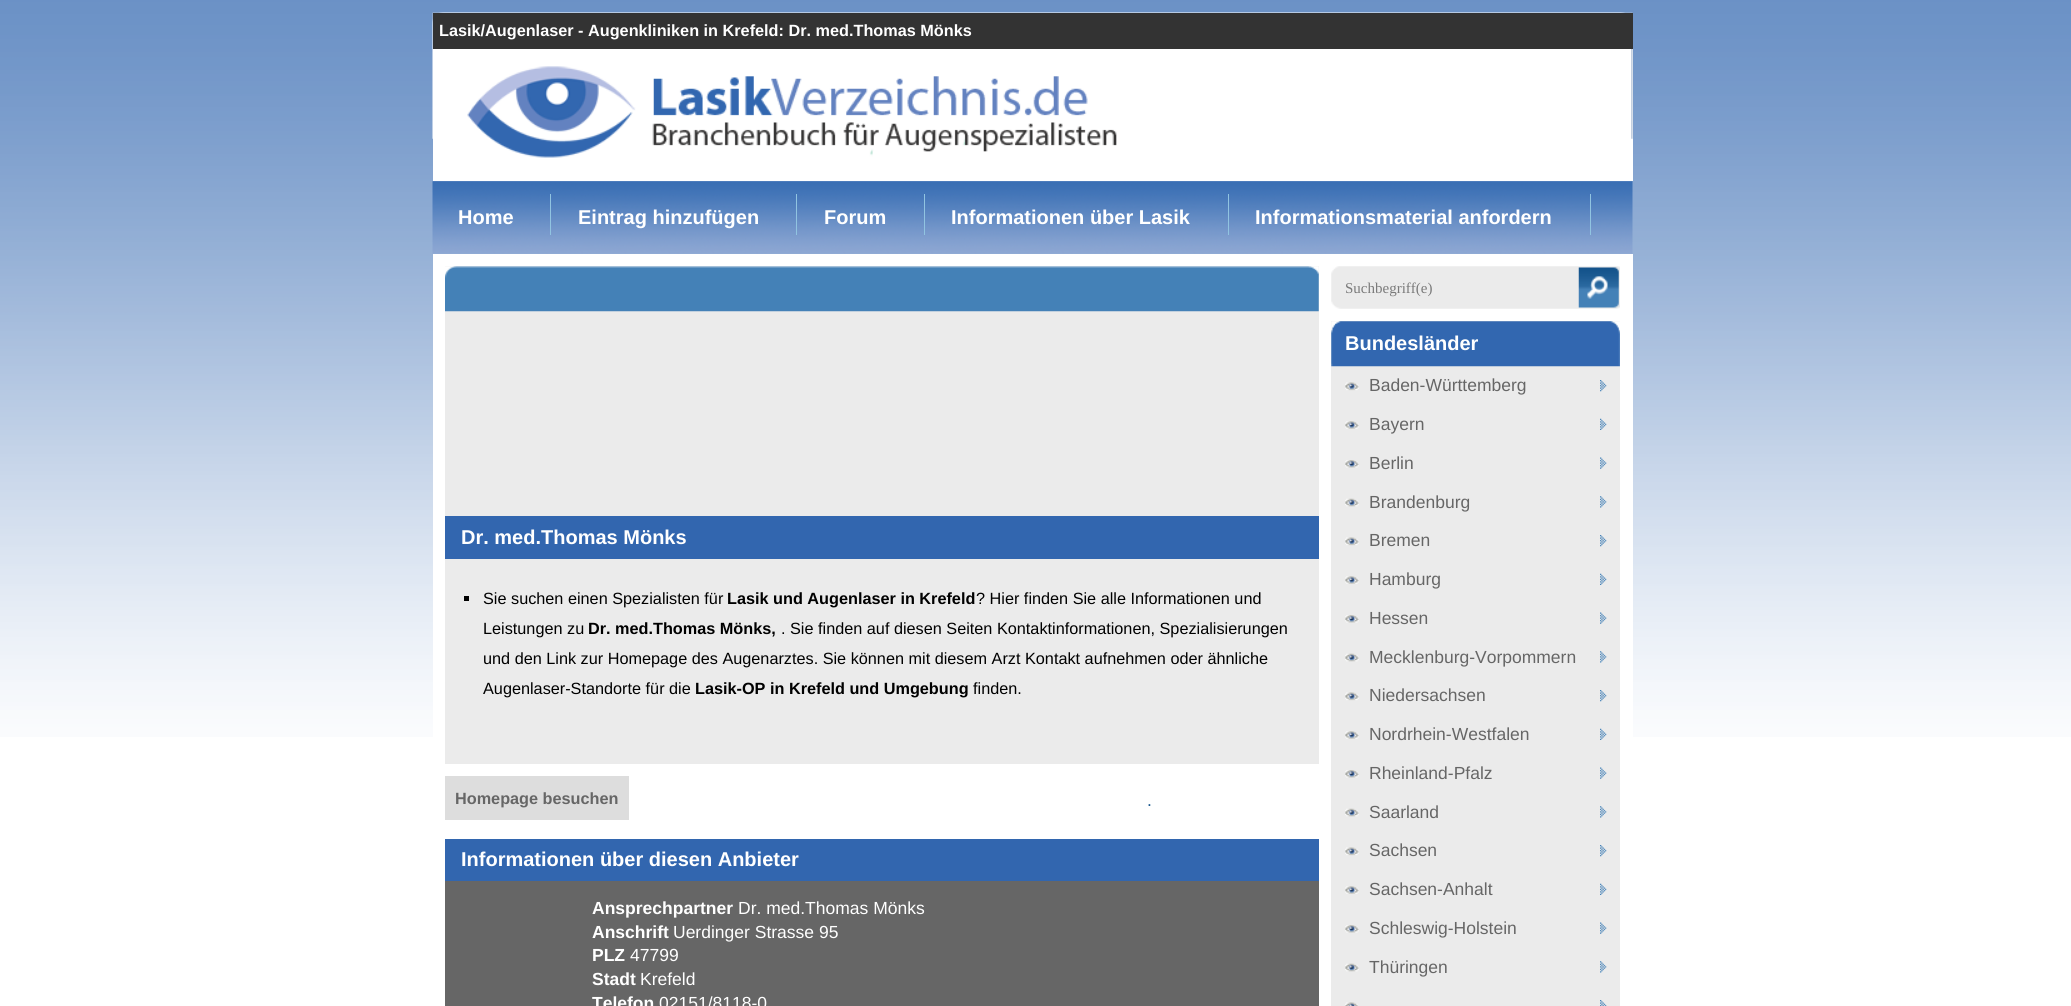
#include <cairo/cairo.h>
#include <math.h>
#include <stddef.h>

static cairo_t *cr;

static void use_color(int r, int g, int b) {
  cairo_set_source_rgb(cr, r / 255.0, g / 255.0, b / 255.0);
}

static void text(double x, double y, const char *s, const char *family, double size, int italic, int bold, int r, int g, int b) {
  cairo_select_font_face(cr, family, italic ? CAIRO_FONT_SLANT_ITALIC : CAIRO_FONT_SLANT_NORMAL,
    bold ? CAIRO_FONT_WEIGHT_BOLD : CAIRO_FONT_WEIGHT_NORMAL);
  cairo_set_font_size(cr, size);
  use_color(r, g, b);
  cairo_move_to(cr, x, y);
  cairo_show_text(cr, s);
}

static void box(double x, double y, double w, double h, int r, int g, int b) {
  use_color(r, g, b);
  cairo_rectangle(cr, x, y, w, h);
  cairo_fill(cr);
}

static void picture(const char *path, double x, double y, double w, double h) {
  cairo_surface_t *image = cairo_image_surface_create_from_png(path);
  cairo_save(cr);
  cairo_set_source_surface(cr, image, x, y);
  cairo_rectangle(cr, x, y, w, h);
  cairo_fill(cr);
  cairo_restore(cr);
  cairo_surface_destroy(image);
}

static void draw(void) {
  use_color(255, 255, 255);
  cairo_paint(cr);
  picture("img_01.png", 0, 0, 2071, 737);
  box(433, 49, 1200, 132, 255, 255, 255);
  picture("img_02.png", 432, 12, 1201, 127);
  box(433, 13, 1200, 36, 51, 51, 51);
  picture("img_03.png", 467, 66, 650, 92);
  picture("img_04.png", 432, 181, 1201, 73);
  box(550, 194, 1, 41, 145, 196, 225);
  box(796, 194, 1, 41, 145, 196, 225);
  box(924, 194, 1, 41, 145, 196, 225);
  box(1228, 194, 1, 41, 145, 196, 225);
  box(1590, 194, 1, 41, 145, 196, 225);
  box(433, 254, 1200, 483, 255, 255, 255);
  box(445, 266, 874, 498, 235, 235, 235);
  picture("img_05.png", 445, 266, 874, 46);
  box(445, 516, 874, 43, 50, 102, 175);
  box(464, 596, 5, 5, 0, 0, 0);
  box(445, 776, 184, 44, 221, 221, 221);
  box(445, 881, 874, 125, 102, 102, 102);
  box(445, 839, 874, 42, 50, 102, 175);
  picture("img_06.png", 1331, 266, 289, 43);
  picture("img_07.png", 1578, 267, 41, 41);
  box(1331, 321, 289, 685, 235, 235, 235);
  picture("img_08.png", 1331, 321, 289, 46);
  picture("img_09.png", 1345, 382, 14, 9);
  picture("img_10.png", 1600, 380, 7, 12);
  picture("img_11.png", 1345, 421, 14, 8);
  picture("img_12.png", 1600, 418, 7, 12);
  picture("img_13.png", 1345, 460, 14, 8);
  picture("img_14.png", 1600, 457, 7, 12);
  picture("img_15.png", 1345, 498, 14, 9);
  picture("img_16.png", 1600, 496, 7, 12);
  picture("img_09.png", 1345, 537, 14, 9);
  picture("img_10.png", 1600, 535, 7, 12);
  picture("img_11.png", 1345, 576, 14, 8);
  picture("img_12.png", 1600, 573, 7, 12);
  picture("img_13.png", 1345, 615, 14, 8);
  picture("img_14.png", 1600, 612, 7, 12);
  picture("img_15.png", 1345, 653, 14, 9);
  picture("img_16.png", 1600, 651, 7, 12);
  picture("img_09.png", 1345, 692, 14, 9);
  picture("img_10.png", 1600, 690, 7, 12);
  picture("img_11.png", 1345, 731, 14, 8);
  picture("img_12.png", 1600, 728, 7, 12);
  picture("img_13.png", 1345, 770, 14, 8);
  picture("img_14.png", 1600, 767, 7, 12);
  picture("img_15.png", 1345, 808, 14, 9);
  picture("img_16.png", 1600, 806, 7, 12);
  picture("img_09.png", 1345, 847, 14, 9);
  picture("img_10.png", 1600, 845, 7, 12);
  picture("img_11.png", 1345, 886, 14, 8);
  picture("img_12.png", 1600, 883, 7, 12);
  picture("img_13.png", 1345, 925, 14, 8);
  picture("img_14.png", 1600, 922, 7, 12);
  picture("img_15.png", 1345, 963, 14, 9);
  picture("img_16.png", 1600, 961, 7, 12);
  picture("img_17.png", 1345, 1002, 13, 4);
  picture("img_18.png", 1600, 1000, 7, 6);
  text(439, 36, "Lasik/Augenlaser - Augenkliniken in Krefeld: Dr. med.Thomas Mönks", "Liberation Sans", 16.25, 0, 1, 255, 255, 255);
  text(458, 224, "Home", "Liberation Sans", 20, 0, 1, 255, 255, 255);
  text(578, 224, "Eintrag hinzufügen", "Liberation Sans", 20, 0, 1, 255, 255, 255);
  text(824, 224, "Forum", "Liberation Sans", 20, 0, 1, 255, 255, 255);
  text(951, 224, "Informationen über Lasik", "Liberation Sans", 20, 0, 1, 255, 255, 255);
  text(1255, 224, "Informationsmaterial anfordern", "Liberation Sans", 20, 0, 1, 255, 255, 255);
  text(461, 544, "Dr. med.Thomas Mönks", "Liberation Sans", 20, 0, 1, 255, 255, 255);
  text(483, 604, "Sie suchen einen Spezialisten für", "Liberation Sans", 16.25, 0, 0, 0, 0, 0);
  text(727, 604, "Lasik und Augenlaser in Krefeld", "Liberation Sans", 16.25, 0, 1, 0, 0, 0);
  text(976, 604, "? Hier finden Sie alle Informationen und", "Liberation Sans", 16.25, 0, 0, 0, 0, 0);
  text(483, 634, "Leistungen zu", "Liberation Sans", 16.25, 0, 0, 0, 0, 0);
  text(588, 634, "Dr. med.Thomas Mönks,", "Liberation Sans", 16.25, 0, 1, 0, 0, 0);
  text(781, 634, ". Sie finden auf diesen Seiten Kontaktinformationen, Spezialisierungen", "Liberation Sans", 16.25, 0, 0, 0, 0, 0);
  text(483, 664, "und den Link zur Homepage des Augenarztes. Sie können mit diesem Arzt Kontakt aufnehmen oder ähnliche", "Liberation Sans", 16.25, 0, 0, 0, 0, 0);
  text(483, 694, "Augenlaser-Standorte für die", "Liberation Sans", 16.25, 0, 0, 0, 0, 0);
  text(695, 694, "Lasik-OP in Krefeld und Umgebung", "Liberation Sans", 16.25, 0, 1, 0, 0, 0);
  text(973, 694, "finden.", "Liberation Sans", 16.25, 0, 0, 0, 0, 0);
  text(455, 804, "Homepage besuchen", "Liberation Sans", 16.25, 0, 1, 102, 102, 102);
  text(1147, 806, ".", "Liberation Sans", 17.5, 0, 0, 27, 89, 143);
  text(461, 866, "Informationen über diesen Anbieter", "Liberation Sans", 20, 0, 1, 255, 255, 255);
  text(592, 914, "Ansprechpartner", "Liberation Sans", 17.5, 0, 1, 255, 255, 255);
  text(738, 914, "Dr. med.Thomas Mönks", "Liberation Sans", 17.5, 0, 0, 255, 255, 255);
  text(592, 938, "Anschrift", "Liberation Sans", 17.5, 0, 1, 255, 255, 255);
  text(673, 938, "Uerdinger Strasse 95", "Liberation Sans", 17.5, 0, 0, 255, 255, 255);
  text(592, 961, "PLZ", "Liberation Sans", 17.5, 0, 1, 255, 255, 255);
  text(630, 961, "47799", "Liberation Sans", 17.5, 0, 0, 255, 255, 255);
  text(592, 985, "Stadt", "Liberation Sans", 17.5, 0, 1, 255, 255, 255);
  text(640, 985, "Krefeld", "Liberation Sans", 17.5, 0, 0, 255, 255, 255);
  text(592, 1009, "Telefon", "Liberation Sans", 17.5, 0, 1, 255, 255, 255);
  text(659, 1009, "02151/8118-0", "Liberation Sans", 17.5, 0, 0, 255, 255, 255);
  text(1345, 293, "Suchbegriff(e)", "Liberation Serif", 15, 0, 0, 122, 122, 122);
  text(1345, 350, "Bundesländer", "Liberation Sans", 20, 0, 1, 255, 255, 255);
  text(1369, 391, "Baden-Württemberg", "Liberation Sans", 17.5, 0, 0, 102, 102, 102);
  text(1369, 430, "Bayern", "Liberation Sans", 17.5, 0, 0, 102, 102, 102);
  text(1369, 469, "Berlin", "Liberation Sans", 17.5, 0, 0, 102, 102, 102);
  text(1369, 508, "Brandenburg", "Liberation Sans", 17.5, 0, 0, 102, 102, 102);
  text(1369, 546, "Bremen", "Liberation Sans", 17.5, 0, 0, 102, 102, 102);
  text(1369, 585, "Hamburg", "Liberation Sans", 17.5, 0, 0, 102, 102, 102);
  text(1369, 624, "Hessen", "Liberation Sans", 17.5, 0, 0, 102, 102, 102);
  text(1369, 663, "Mecklenburg-Vorpommern", "Liberation Sans", 17.5, 0, 0, 102, 102, 102);
  text(1369, 701, "Niedersachsen", "Liberation Sans", 17.5, 0, 0, 102, 102, 102);
  text(1369, 740, "Nordrhein-Westfalen", "Liberation Sans", 17.5, 0, 0, 102, 102, 102);
  text(1369, 779, "Rheinland-Pfalz", "Liberation Sans", 17.5, 0, 0, 102, 102, 102);
  text(1369, 818, "Saarland", "Liberation Sans", 17.5, 0, 0, 102, 102, 102);
  text(1369, 856, "Sachsen", "Liberation Sans", 17.5, 0, 0, 102, 102, 102);
  text(1369, 895, "Sachsen-Anhalt", "Liberation Sans", 17.5, 0, 0, 102, 102, 102);
  text(1369, 934, "Schleswig-Holstein", "Liberation Sans", 17.5, 0, 0, 102, 102, 102);
  text(1369, 973, "Thüringen", "Liberation Sans", 17.5, 0, 0, 102, 102, 102);
}

int main(void) {
  cairo_surface_t *surface = cairo_image_surface_create(CAIRO_FORMAT_RGB24, 2071, 1006);
  cr = cairo_create(surface);
  cairo_font_options_t *options = cairo_font_options_create();
  cairo_font_options_set_hint_metrics(options, CAIRO_HINT_METRICS_OFF);
  cairo_font_options_set_hint_style(options, CAIRO_HINT_STYLE_NONE);
  cairo_set_font_options(cr, options);
  cairo_set_miter_limit(cr, 4);
  draw();
  cairo_surface_write_to_png(surface, "out.png");
  cairo_font_options_destroy(options);
  cairo_destroy(cr);
  cairo_surface_destroy(surface);
  return 0;
}
